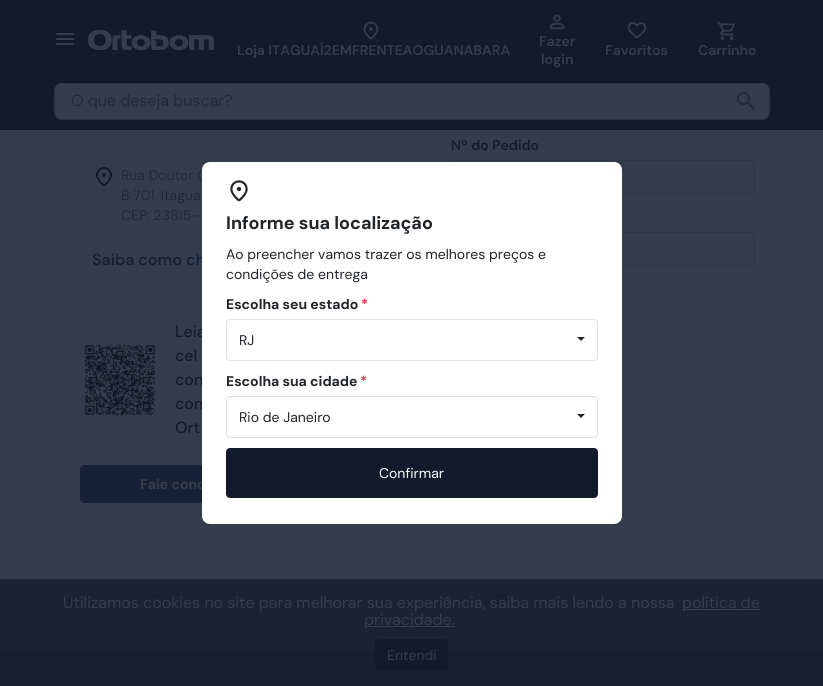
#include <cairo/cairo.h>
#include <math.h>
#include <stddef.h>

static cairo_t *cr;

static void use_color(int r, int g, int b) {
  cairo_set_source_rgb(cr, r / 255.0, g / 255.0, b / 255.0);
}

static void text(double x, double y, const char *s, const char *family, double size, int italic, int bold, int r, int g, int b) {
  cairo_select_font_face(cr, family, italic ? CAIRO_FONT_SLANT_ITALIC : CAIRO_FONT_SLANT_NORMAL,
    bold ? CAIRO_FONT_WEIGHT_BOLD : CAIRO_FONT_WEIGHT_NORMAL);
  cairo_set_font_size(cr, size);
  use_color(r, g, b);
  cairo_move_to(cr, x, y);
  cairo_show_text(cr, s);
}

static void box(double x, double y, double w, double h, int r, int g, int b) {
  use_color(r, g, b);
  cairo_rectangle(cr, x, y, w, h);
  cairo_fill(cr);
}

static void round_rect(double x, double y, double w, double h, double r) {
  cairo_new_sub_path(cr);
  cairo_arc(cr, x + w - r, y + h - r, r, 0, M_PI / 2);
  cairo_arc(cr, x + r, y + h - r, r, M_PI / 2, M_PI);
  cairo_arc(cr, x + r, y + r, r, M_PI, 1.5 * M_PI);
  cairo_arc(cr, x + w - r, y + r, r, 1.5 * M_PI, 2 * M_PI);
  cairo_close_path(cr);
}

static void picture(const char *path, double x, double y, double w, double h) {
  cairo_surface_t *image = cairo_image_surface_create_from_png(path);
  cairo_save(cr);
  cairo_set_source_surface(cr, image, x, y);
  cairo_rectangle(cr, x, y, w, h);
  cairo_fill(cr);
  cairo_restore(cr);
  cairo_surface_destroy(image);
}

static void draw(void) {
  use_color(54, 60, 75);
  cairo_paint(cr);
  box(0, 0, 823, 130, 18, 26, 43);
  picture("img_01.png", 56, 33, 18, 12);
  picture("img_02.png", 87, 29, 128, 21);
  picture("img_03.png", 363, 21, 16, 19);
  picture("img_04.png", 549, 14, 16, 16);
  picture("img_05.png", 627, 22, 20, 17);
  picture("img_06.png", 716, 21, 20, 19);
  use_color(54, 60, 75);
  round_rect(54.5, 83.5, 715, 36, 7.5);
  cairo_fill_preserve(cr);
  use_color(44, 51, 65);
  cairo_set_line_width(cr, 1);
  cairo_stroke(cr);
  picture("img_07.png", 737, 92, 18, 18);
  use_color(51, 58, 72);
  cairo_new_path(cr);
  cairo_move_to(cr, 455, 162);
  cairo_line_to(cr, 751, 162);
  cairo_curve_to(cr, 753, 162, 754, 163, 754, 165);
  cairo_line_to(cr, 753, 162);
  cairo_line_to(cr, 752, 161);
  cairo_line_to(cr, 455, 161);
  cairo_curve_to(cr, 453, 161, 452, 163, 452, 165);
  cairo_curve_to(cr, 452, 163, 453, 162, 455, 162);
  cairo_close_path(cr);
  cairo_fill(cr);
  round_rect(451.5, 160.5, 303, 33, 3.5);
  use_color(46, 53, 67);
  cairo_stroke(cr);
  use_color(51, 58, 72);
  cairo_new_path(cr);
  cairo_move_to(cr, 455, 234);
  cairo_line_to(cr, 751, 234);
  cairo_curve_to(cr, 753, 234, 754, 235, 754, 237);
  cairo_line_to(cr, 753, 234);
  cairo_line_to(cr, 752, 233);
  cairo_line_to(cr, 455, 233);
  cairo_curve_to(cr, 453, 233, 452, 235, 452, 237);
  cairo_curve_to(cr, 452, 235, 453, 234, 455, 234);
  cairo_close_path(cr);
  cairo_fill(cr);
  round_rect(451.5, 232.5, 303, 33, 3.5);
  use_color(46, 53, 67);
  cairo_stroke(cr);
  picture("img_08.png", 96, 167, 16, 20);
  picture("img_09.png", 84, 344, 72, 72);
  use_color(22, 33, 55);
  round_rect(80, 465, 308, 38, 4);
  cairo_fill(cr);
  picture("img_10.png", 68, 594, 7, 12);
  picture("img_11.png", 151, 595, 16, 11);
  box(425, 584, 1, 32, 49, 56, 70);
  picture("img_12.png", 495, 593, 14, 14);
  picture("img_13.png", 748, 594, 7, 12);
  box(0, 650, 823, 36, 21, 30, 49);
  cairo_set_source_rgba(cr, 0.102, 0.125, 0.184, 0.9);
  cairo_rectangle(cr, 0, 579, 823, 107);
  cairo_fill(cr);
  box(682, 609, 78, 1, 54, 60, 75);
  box(364, 626, 91, 1, 54, 60, 75);
  use_color(18, 26, 43);
  round_rect(375, 639, 73, 32, 4);
  cairo_fill(cr);
  text(237, 55, "Loja ITAGUAÍ2EMFRENTEAOGUANABARA", "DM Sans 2 SemiBold", 14, 0, 0, 54, 60, 75);
  text(539, 46, "Fazer", "DM Sans 2 SemiBold", 14, 0, 0, 54, 60, 75);
  text(541, 64, "login", "DM Sans 2 SemiBold", 14, 0, 0, 54, 60, 75);
  text(605, 55, "Favoritos", "DM Sans 2 SemiBold", 14, 0, 0, 54, 60, 75);
  text(698, 55, "Carrinho", "DM Sans 2 SemiBold", 14, 0, 0, 54, 60, 75);
  text(71, 106, "O que deseja buscar?", "DM Sans 2", 16, 0, 0, 33, 40, 54);
  text(451, 150, "Nº do Pedido", "DM Sans 2 SemiBold", 14, 0, 0, 20, 27, 42);
  text(121, 180, "Rua Doutor C", "DM Sans", 14, 0, 0, 33, 40, 54);
  text(121, 200, "B 701, Itagua", "DM Sans", 14, 0, 0, 33, 40, 54);
  text(121, 220, "CEP: 23815-", "DM Sans", 14, 0, 0, 33, 40, 54);
  text(92, 265, "Saiba como ch", "DM Sans SemiBold", 16, 0, 0, 22, 33, 55);
  text(175, 337, "Leia", "DM Sans Medium", 16, 0, 0, 20, 27, 42);
  text(175, 361, "cel", "DM Sans Medium", 16, 0, 0, 20, 27, 42);
  text(175, 385, "con", "DM Sans Medium", 16, 0, 0, 20, 27, 42);
  text(175, 409, "com", "DM Sans Medium", 16, 0, 0, 20, 27, 42);
  text(175, 433, "Ort", "DM Sans Medium", 16, 0, 0, 20, 27, 42);
  text(140, 489, "Fale cono", "DM Sans", 14, 0, 1, 54, 60, 75);
  use_color(255, 255, 255);
  round_rect(202, 162, 420, 362, 8);
  cairo_fill(cr);
  picture("img_14.png", 230, 180, 18, 22);
  text(226, 229, "Informe sua localização", "DM Sans 2", 18, 0, 1, 33, 37, 41);
  text(226, 259, "Ao preencher vamos trazer os melhores preços e", "DM Sans", 14, 0, 0, 33, 37, 41);
  text(226, 279, "condições de entrega", "DM Sans", 14, 0, 0, 33, 37, 41);
  text(226, 309, "Escolha seu estado", "DM Sans", 14, 0, 1, 33, 37, 41);
  text(361, 309, "*", "DM Sans", 14, 0, 1, 220, 53, 69);
  round_rect(226.5, 319.5, 371, 41, 3.5);
  use_color(222, 226, 230);
  cairo_stroke(cr);
  text(239, 345, "RJ", "DM Sans", 14, 0, 0, 33, 37, 41);
  cairo_new_path(cr);
  cairo_move_to(cr, 577, 337);
  cairo_line_to(cr, 585, 337);
  cairo_line_to(cr, 581, 341);
  cairo_close_path(cr);
  cairo_fill(cr);
  text(226, 386, "Escolha sua cidade", "DM Sans", 14, 0, 1, 33, 37, 41);
  text(360, 386, "*", "DM Sans", 14, 0, 1, 220, 53, 69);
  round_rect(226.5, 396.5, 371, 41, 3.5);
  use_color(222, 226, 230);
  cairo_stroke(cr);
  text(239, 422, "Rio de Janeiro", "DM Sans", 14, 0, 0, 33, 37, 41);
  cairo_new_path(cr);
  cairo_move_to(cr, 577, 414);
  cairo_line_to(cr, 585, 414);
  cairo_line_to(cr, 581, 418);
  cairo_close_path(cr);
  cairo_fill(cr);
  use_color(18, 26, 43);
  round_rect(226, 448, 372, 50, 4);
  cairo_fill(cr);
  text(379, 478, "Confirmar", "DM Sans", 14, 0, 0, 255, 255, 255);
  text(63, 608, "Utilizamos cookies no site para melhorar sua experiência, saiba mais lendo a nossa", "DM Sans 2", 16, 0, 0, 54, 60, 75);
  text(682, 608, "política de", "DM Sans 2", 16, 0, 0, 54, 60, 75);
  text(364, 625, "privacidade.", "DM Sans 2", 16, 0, 0, 54, 60, 75);
  text(387, 660, "Entendi", "DM Sans", 14, 0, 0, 54, 60, 75);
}

int main(void) {
  cairo_surface_t *surface = cairo_image_surface_create(CAIRO_FORMAT_RGB24, 823, 686);
  cr = cairo_create(surface);
  cairo_font_options_t *options = cairo_font_options_create();
  cairo_font_options_set_hint_metrics(options, CAIRO_HINT_METRICS_OFF);
  cairo_font_options_set_hint_style(options, CAIRO_HINT_STYLE_NONE);
  cairo_set_font_options(cr, options);
  cairo_set_miter_limit(cr, 4);
  draw();
  cairo_surface_write_to_png(surface, "out.png");
  cairo_font_options_destroy(options);
  cairo_destroy(cr);
  cairo_surface_destroy(surface);
  return 0;
}
